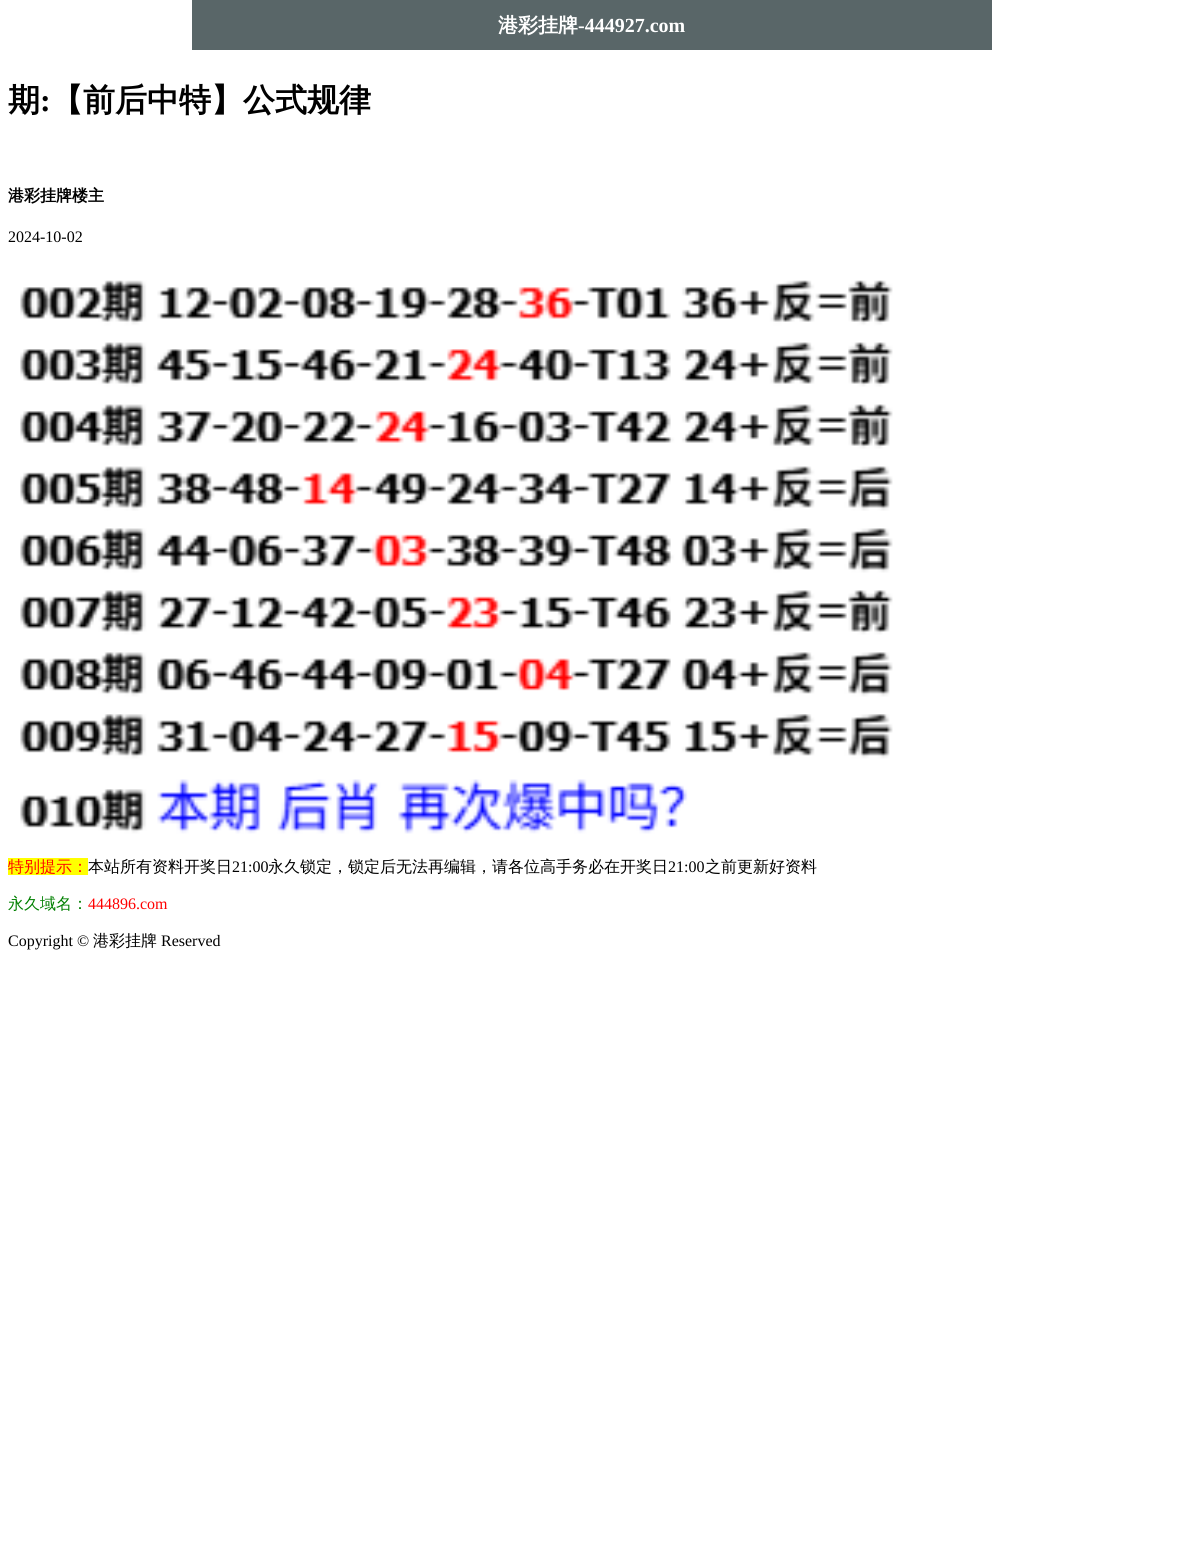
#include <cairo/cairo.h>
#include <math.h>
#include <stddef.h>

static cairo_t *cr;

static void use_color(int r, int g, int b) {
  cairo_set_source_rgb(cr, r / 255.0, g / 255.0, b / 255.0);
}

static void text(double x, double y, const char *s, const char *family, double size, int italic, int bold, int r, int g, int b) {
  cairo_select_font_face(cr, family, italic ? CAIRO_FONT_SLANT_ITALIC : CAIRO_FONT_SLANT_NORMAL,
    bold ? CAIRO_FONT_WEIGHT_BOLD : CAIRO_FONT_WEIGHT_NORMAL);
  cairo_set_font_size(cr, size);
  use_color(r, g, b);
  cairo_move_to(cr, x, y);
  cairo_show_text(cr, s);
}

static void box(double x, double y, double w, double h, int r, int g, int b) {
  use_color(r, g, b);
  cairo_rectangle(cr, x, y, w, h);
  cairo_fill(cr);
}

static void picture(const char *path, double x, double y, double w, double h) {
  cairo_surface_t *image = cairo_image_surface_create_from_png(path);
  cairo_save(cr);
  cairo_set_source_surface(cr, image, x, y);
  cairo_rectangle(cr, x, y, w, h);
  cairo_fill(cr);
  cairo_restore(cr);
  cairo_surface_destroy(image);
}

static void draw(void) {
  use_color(255, 255, 255);
  cairo_paint(cr);
  box(192, 0, 800, 50, 89, 102, 104);
  picture("img_01.png", 20, 280, 873, 554);
  box(8, 858, 80, 17, 255, 255, 0);
  text(498, 32, "港彩挂牌", "WenQuanYi Zen Hei", 20, 0, 1, 255, 255, 255);
  text(578, 32, "-444927.com", "Liberation Serif", 20, 0, 1, 255, 255, 255);
  text(8, 111, "期", "WenQuanYi Zen Hei", 32, 0, 1, 0, 0, 0);
  text(40, 111, ":", "Liberation Serif", 32, 0, 1, 0, 0, 0);
  text(51, 111, "【前后中特】公式规律", "WenQuanYi Zen Hei", 32, 0, 1, 0, 0, 0);
  text(8, 201, "港彩挂牌楼主", "WenQuanYi Zen Hei", 16, 0, 1, 0, 0, 0);
  text(8, 242, "2024-10-02", "Liberation Serif", 16, 0, 0, 0, 0, 0);
  text(8, 872, "特别提示：", "WenQuanYi Zen Hei Medium", 16, 0, 0, 255, 0, 0);
  text(88, 872, "本站所有资料开奖日", "WenQuanYi Zen Hei Medium", 16, 0, 0, 0, 0, 0);
  text(232, 872, "21:00", "Liberation Serif", 16, 0, 0, 0, 0, 0);
  text(268, 872, "永久锁定，锁定后无法再编辑，请各位高手务必在开奖日", "WenQuanYi Zen Hei Medium", 16, 0, 0, 0, 0, 0);
  text(668, 872, "21:00", "Liberation Serif", 16, 0, 0, 0, 0, 0);
  text(705, 872, "之前更新好资料", "WenQuanYi Zen Hei Medium", 16, 0, 0, 0, 0, 0);
  text(8, 909, "永久域名：", "WenQuanYi Zen Hei Medium", 16, 0, 0, 0, 128, 0);
  text(88, 909, "444896.com", "Liberation Serif", 16, 0, 0, 255, 0, 0);
  text(8, 946, "Copyright ©", "Liberation Serif", 16, 0, 0, 0, 0, 0);
  text(93, 946, "港彩挂牌", "WenQuanYi Zen Hei Medium", 16, 0, 0, 0, 0, 0);
  text(161, 946, "Reserved", "Liberation Serif", 16, 0, 0, 0, 0, 0);
}

int main(void) {
  cairo_surface_t *surface = cairo_image_surface_create(CAIRO_FORMAT_RGB24, 1183, 1567);
  cr = cairo_create(surface);
  cairo_font_options_t *options = cairo_font_options_create();
  cairo_font_options_set_hint_metrics(options, CAIRO_HINT_METRICS_OFF);
  cairo_font_options_set_hint_style(options, CAIRO_HINT_STYLE_NONE);
  cairo_set_font_options(cr, options);
  cairo_set_miter_limit(cr, 4);
  draw();
  cairo_surface_write_to_png(surface, "out.png");
  cairo_font_options_destroy(options);
  cairo_destroy(cr);
  cairo_surface_destroy(surface);
  return 0;
}
